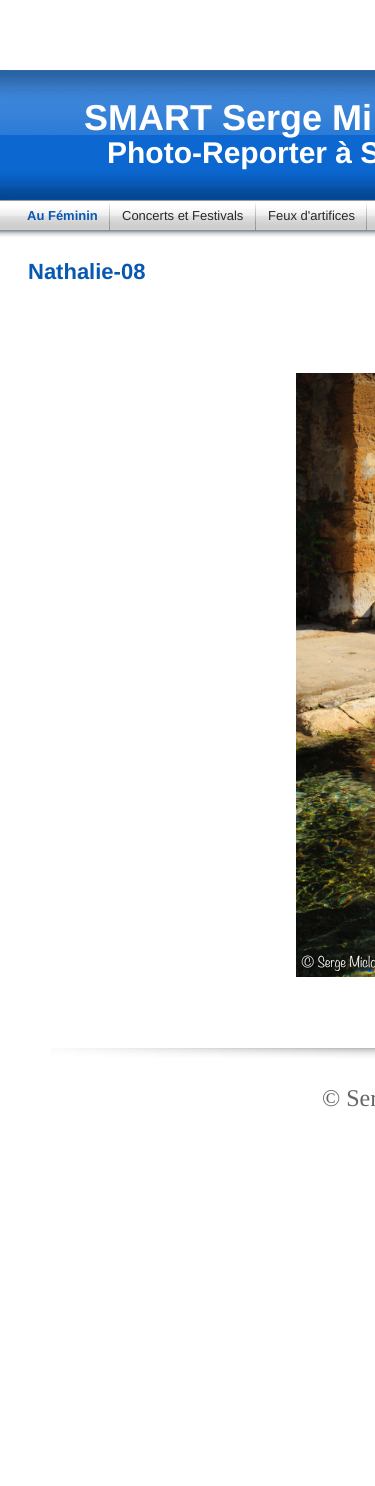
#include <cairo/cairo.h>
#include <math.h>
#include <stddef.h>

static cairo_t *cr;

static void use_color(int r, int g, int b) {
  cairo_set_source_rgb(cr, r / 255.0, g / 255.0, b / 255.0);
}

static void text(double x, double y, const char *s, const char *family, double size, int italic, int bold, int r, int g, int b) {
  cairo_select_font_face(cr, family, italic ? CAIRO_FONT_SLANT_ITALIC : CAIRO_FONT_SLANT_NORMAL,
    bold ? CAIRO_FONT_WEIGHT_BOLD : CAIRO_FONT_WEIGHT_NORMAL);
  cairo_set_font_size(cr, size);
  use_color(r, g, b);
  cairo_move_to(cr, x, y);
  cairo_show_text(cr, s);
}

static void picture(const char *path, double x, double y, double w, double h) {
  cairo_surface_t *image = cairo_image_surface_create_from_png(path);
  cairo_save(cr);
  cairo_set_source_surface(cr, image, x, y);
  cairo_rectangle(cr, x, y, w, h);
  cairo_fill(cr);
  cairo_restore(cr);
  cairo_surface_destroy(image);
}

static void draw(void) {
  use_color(255, 255, 255);
  cairo_paint(cr);
  picture("img_01.png", 0, 200, 375, 37);
  picture("img_02.png", 0, 70, 375, 130);
  picture("img_03.png", 109, 202, 1, 29);
  picture("img_03.png", 255, 202, 1, 29);
  picture("img_03.png", 366, 202, 1, 29);
  picture("img_04.png", 296, 373, 79, 604);
  picture("img_05.png", 51, 1048, 324, 10);
  text(84, 130, "SMART Serge Mi", "Liberation Sans", 36, 0, 1, 255, 255, 255);
  text(107, 163, "Photo-Reporter à S", "Liberation Sans", 30, 0, 1, 255, 255, 255);
  text(27, 220, "Au Féminin", "Liberation Sans", 13, 0, 1, 8, 88, 179);
  text(122, 220, "Concerts et Festivals", "Liberation Sans", 13, 0, 0, 40, 40, 40);
  text(268, 220, "Feux d'artifices", "Liberation Sans", 13, 0, 0, 40, 40, 40);
  text(28, 279, "Nathalie-08", "Liberation Sans", 22, 0, 1, 8, 88, 179);
  text(322, 1106, "© Ser", "Liberation Serif", 24, 0, 0, 102, 102, 102);
}

int main(void) {
  cairo_surface_t *surface = cairo_image_surface_create(CAIRO_FORMAT_RGB24, 375, 1486);
  cr = cairo_create(surface);
  cairo_font_options_t *options = cairo_font_options_create();
  cairo_font_options_set_hint_metrics(options, CAIRO_HINT_METRICS_OFF);
  cairo_font_options_set_hint_style(options, CAIRO_HINT_STYLE_NONE);
  cairo_set_font_options(cr, options);
  cairo_set_miter_limit(cr, 4);
  draw();
  cairo_surface_write_to_png(surface, "out.png");
  cairo_font_options_destroy(options);
  cairo_destroy(cr);
  cairo_surface_destroy(surface);
  return 0;
}
